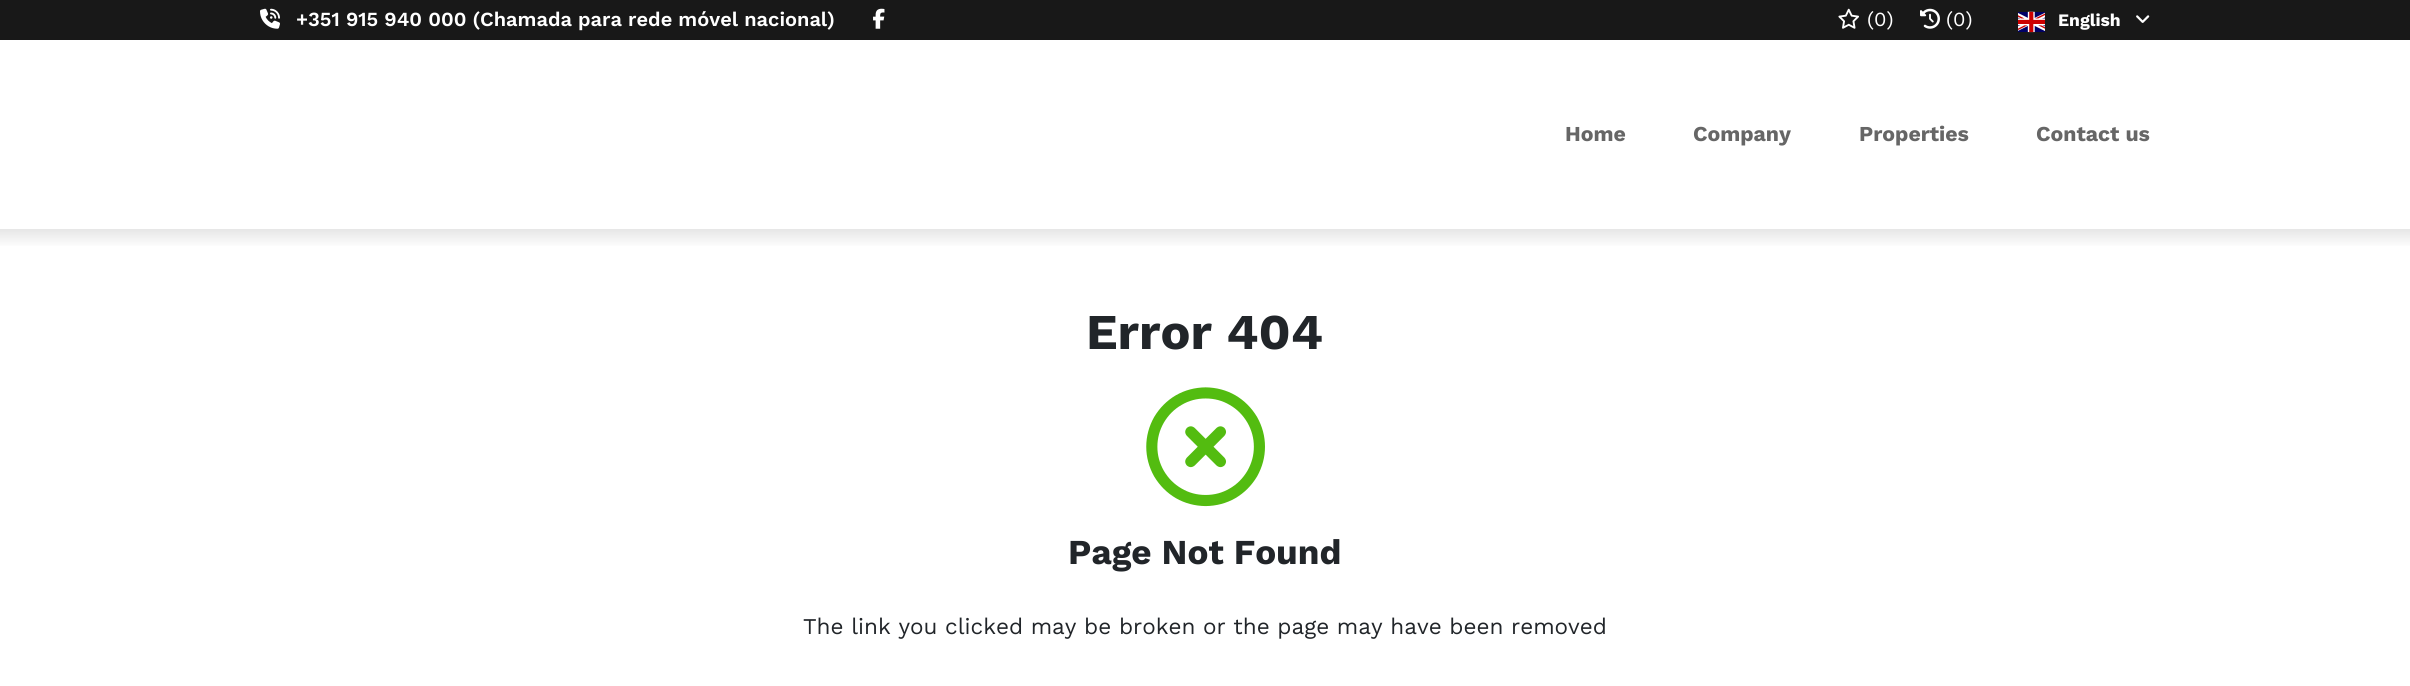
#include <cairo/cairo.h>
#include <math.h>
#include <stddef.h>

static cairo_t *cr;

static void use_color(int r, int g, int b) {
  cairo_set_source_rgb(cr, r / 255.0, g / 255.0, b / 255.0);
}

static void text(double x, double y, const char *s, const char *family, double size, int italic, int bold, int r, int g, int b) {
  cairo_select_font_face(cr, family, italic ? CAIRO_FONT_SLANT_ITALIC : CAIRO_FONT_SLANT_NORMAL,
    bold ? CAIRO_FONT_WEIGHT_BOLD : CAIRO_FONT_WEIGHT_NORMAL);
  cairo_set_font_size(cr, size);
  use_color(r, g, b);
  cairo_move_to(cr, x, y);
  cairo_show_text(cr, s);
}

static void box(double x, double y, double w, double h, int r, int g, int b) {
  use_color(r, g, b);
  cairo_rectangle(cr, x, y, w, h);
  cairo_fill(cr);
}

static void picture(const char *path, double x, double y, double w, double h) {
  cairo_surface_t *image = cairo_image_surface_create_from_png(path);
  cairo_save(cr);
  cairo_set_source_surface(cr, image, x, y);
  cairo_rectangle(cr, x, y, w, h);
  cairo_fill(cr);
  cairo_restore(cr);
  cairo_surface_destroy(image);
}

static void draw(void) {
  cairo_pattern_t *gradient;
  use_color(255, 255, 255);
  cairo_paint(cr);
  box(0, 0, 2410, 40, 24, 24, 24);
  picture("img_01.png", 260, 8, 20, 21);
  picture("img_02.png", 873, 8, 12, 21);
  picture("img_03.png", 1838, 8, 21, 21);
  picture("img_04.png", 1920, 8, 20, 21);
  picture("img_05.png", 2018, 11, 27, 22);
  picture("img_06.png", 2136, 15, 14, 8);
  gradient = cairo_pattern_create_linear(1205, 229, 1205, 248);
  cairo_pattern_add_color_stop_rgba(gradient, 0, 0.902, 0.902, 0.902, 1);
  cairo_pattern_add_color_stop_rgba(gradient, 1, 1, 1, 1, 1);
  cairo_set_source(cr, gradient);
  cairo_pattern_destroy(gradient);
  cairo_rectangle(cr, 0, 229, 2410, 17);
  cairo_fill(cr);
  picture("img_07.png", 1146, 387, 119, 120);
  text(296, 26, "+351 915 940 000 (Chamada para rede móvel nacional)", "Work Sans SemiBold", 20, 0, 0, 255, 255, 255);
  text(1867, 26, "(0)", "Work Sans", 20, 0, 0, 255, 255, 255);
  text(1946, 26, "(0)", "Work Sans", 20, 0, 0, 255, 255, 255);
  text(2058, 26, "English", "Work Sans", 17.5, 0, 1, 255, 255, 255);
  text(1565, 141, "Home", "Work Sans", 21.25, 0, 1, 102, 102, 102);
  text(1693, 141, "Company", "Work Sans", 21.25, 0, 1, 102, 102, 102);
  text(1859, 141, "Properties", "Work Sans", 21.25, 0, 1, 102, 102, 102);
  text(2036, 141, "Contact us", "Work Sans", 21.25, 0, 1, 102, 102, 102);
  text(1086, 349, "Error 404", "Work Sans", 50, 0, 1, 33, 37, 41);
  text(1068, 564, "Page Not Found", "Work Sans", 35, 0, 1, 33, 37, 41);
  text(803, 634, "The link you clicked may be broken or the page may have been removed", "Work Sans", 22.5, 0, 0, 33, 37, 41);
}

int main(void) {
  cairo_surface_t *surface = cairo_image_surface_create(CAIRO_FORMAT_RGB24, 2410, 686);
  cr = cairo_create(surface);
  cairo_font_options_t *options = cairo_font_options_create();
  cairo_font_options_set_hint_metrics(options, CAIRO_HINT_METRICS_OFF);
  cairo_font_options_set_hint_style(options, CAIRO_HINT_STYLE_NONE);
  cairo_set_font_options(cr, options);
  cairo_set_miter_limit(cr, 4);
  draw();
  cairo_surface_write_to_png(surface, "out.png");
  cairo_font_options_destroy(options);
  cairo_destroy(cr);
  cairo_surface_destroy(surface);
  return 0;
}
